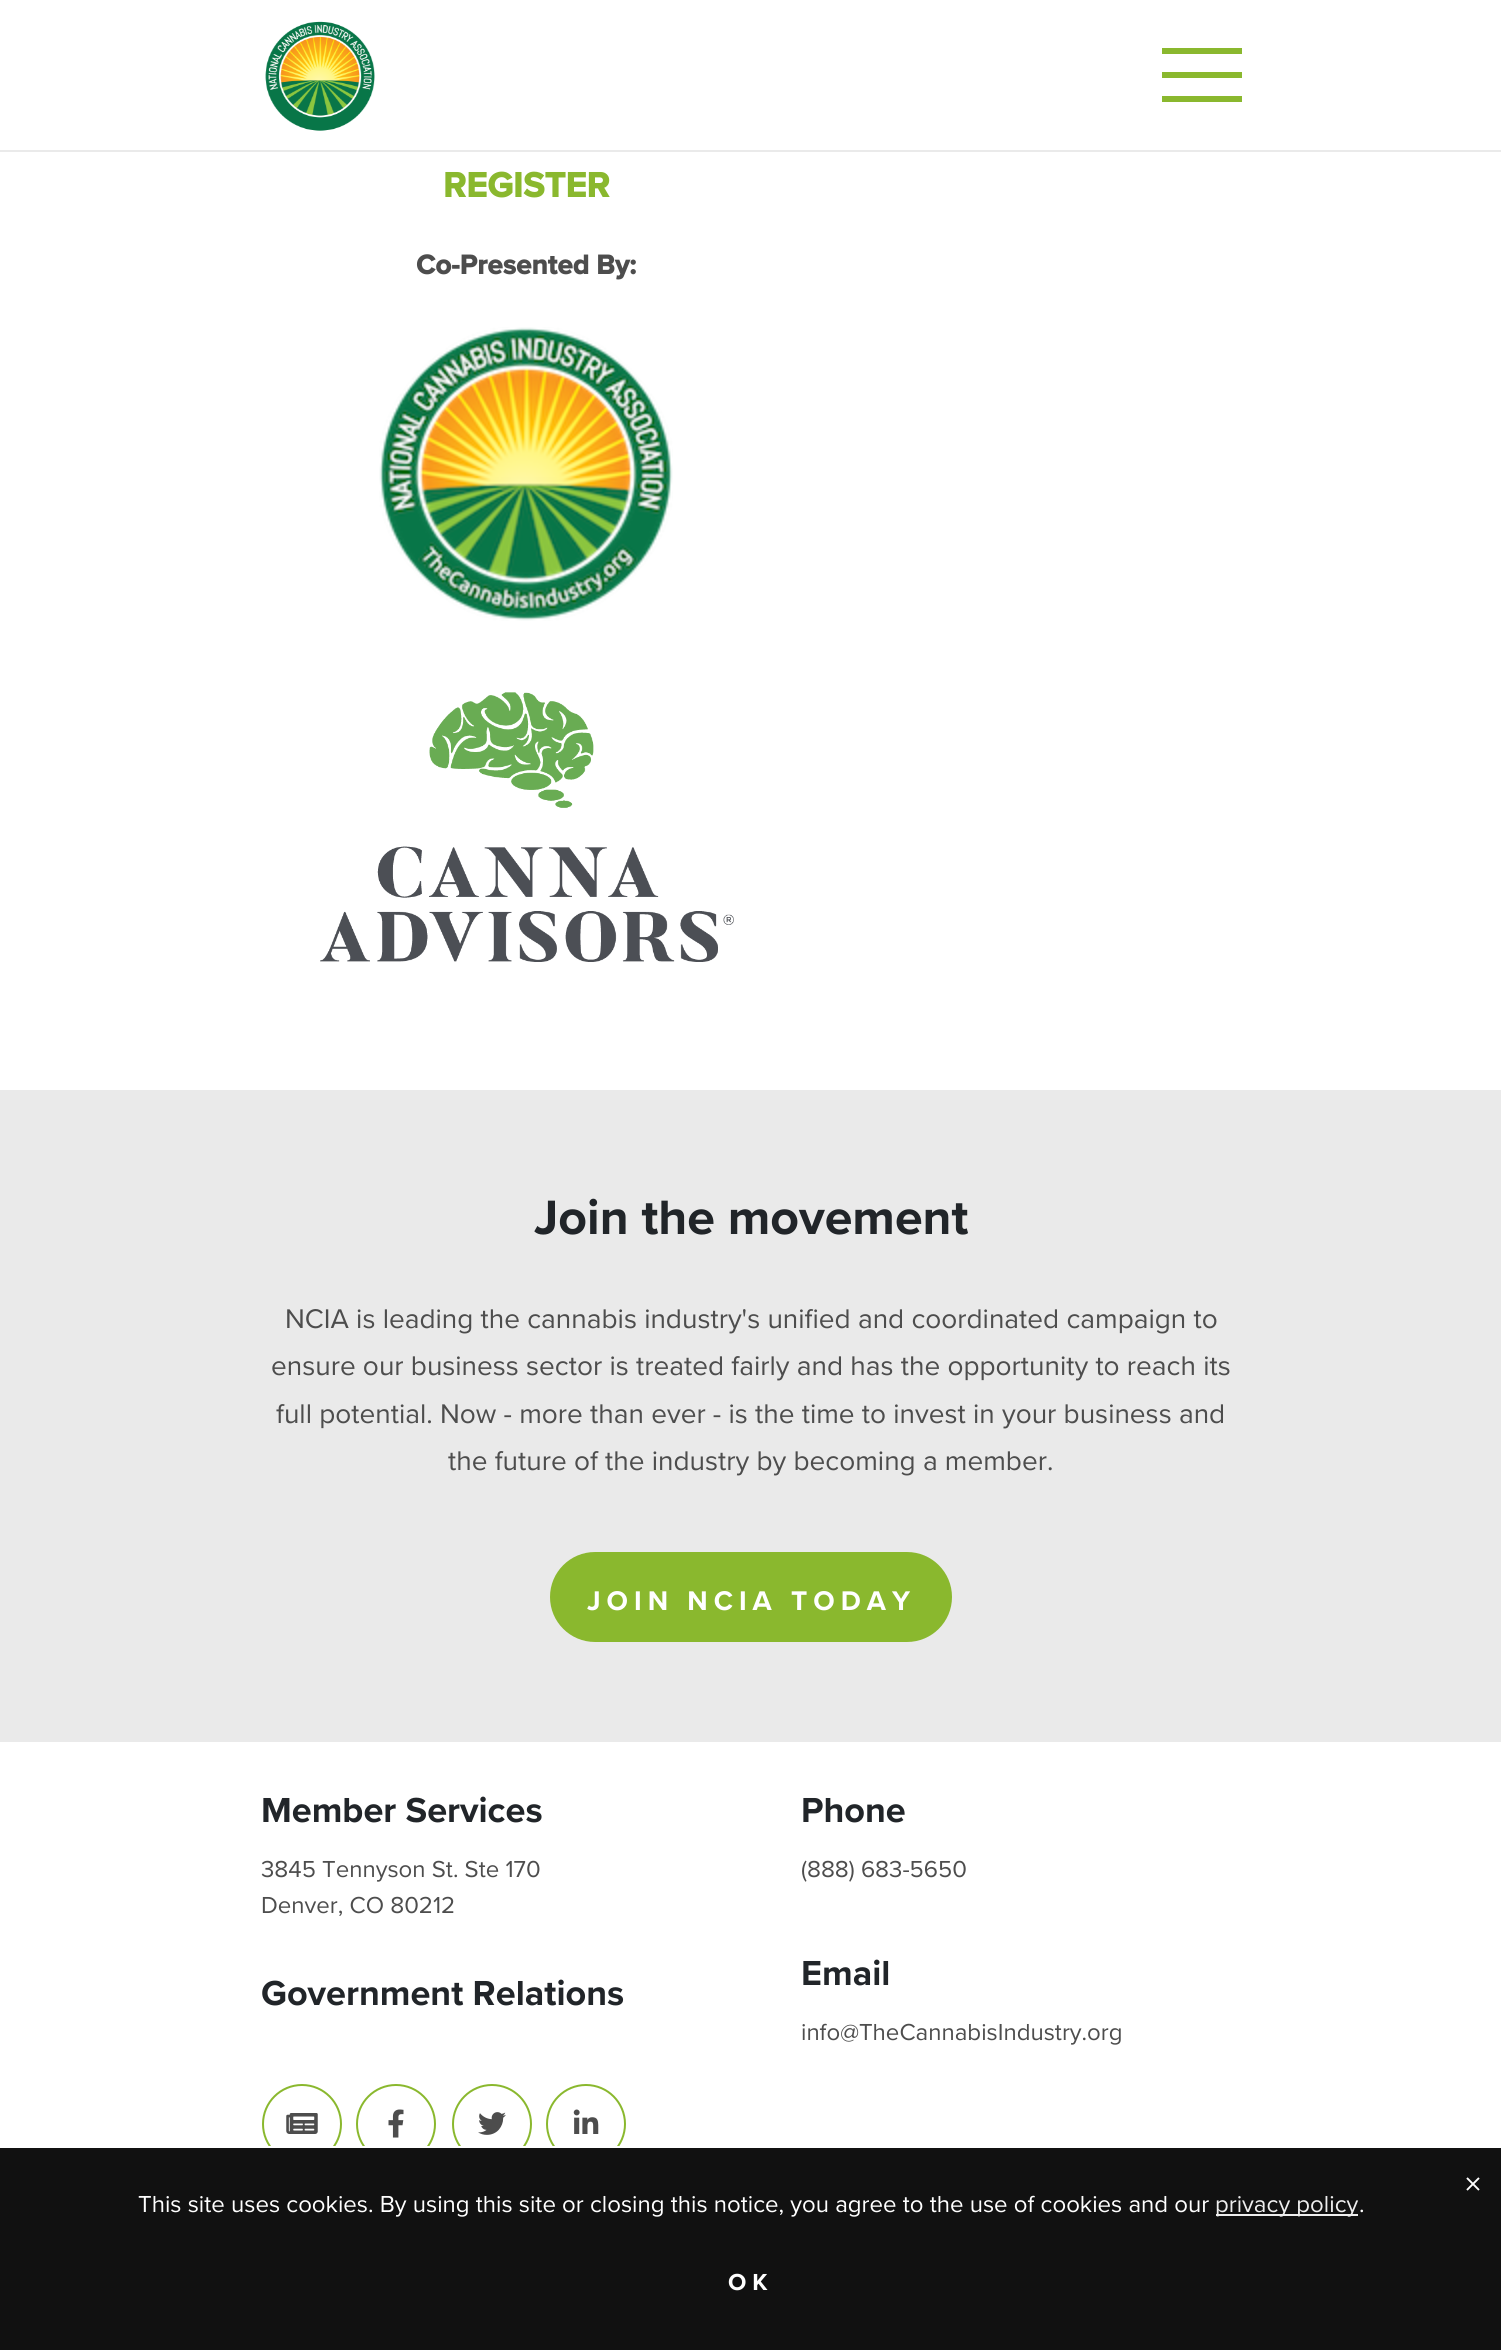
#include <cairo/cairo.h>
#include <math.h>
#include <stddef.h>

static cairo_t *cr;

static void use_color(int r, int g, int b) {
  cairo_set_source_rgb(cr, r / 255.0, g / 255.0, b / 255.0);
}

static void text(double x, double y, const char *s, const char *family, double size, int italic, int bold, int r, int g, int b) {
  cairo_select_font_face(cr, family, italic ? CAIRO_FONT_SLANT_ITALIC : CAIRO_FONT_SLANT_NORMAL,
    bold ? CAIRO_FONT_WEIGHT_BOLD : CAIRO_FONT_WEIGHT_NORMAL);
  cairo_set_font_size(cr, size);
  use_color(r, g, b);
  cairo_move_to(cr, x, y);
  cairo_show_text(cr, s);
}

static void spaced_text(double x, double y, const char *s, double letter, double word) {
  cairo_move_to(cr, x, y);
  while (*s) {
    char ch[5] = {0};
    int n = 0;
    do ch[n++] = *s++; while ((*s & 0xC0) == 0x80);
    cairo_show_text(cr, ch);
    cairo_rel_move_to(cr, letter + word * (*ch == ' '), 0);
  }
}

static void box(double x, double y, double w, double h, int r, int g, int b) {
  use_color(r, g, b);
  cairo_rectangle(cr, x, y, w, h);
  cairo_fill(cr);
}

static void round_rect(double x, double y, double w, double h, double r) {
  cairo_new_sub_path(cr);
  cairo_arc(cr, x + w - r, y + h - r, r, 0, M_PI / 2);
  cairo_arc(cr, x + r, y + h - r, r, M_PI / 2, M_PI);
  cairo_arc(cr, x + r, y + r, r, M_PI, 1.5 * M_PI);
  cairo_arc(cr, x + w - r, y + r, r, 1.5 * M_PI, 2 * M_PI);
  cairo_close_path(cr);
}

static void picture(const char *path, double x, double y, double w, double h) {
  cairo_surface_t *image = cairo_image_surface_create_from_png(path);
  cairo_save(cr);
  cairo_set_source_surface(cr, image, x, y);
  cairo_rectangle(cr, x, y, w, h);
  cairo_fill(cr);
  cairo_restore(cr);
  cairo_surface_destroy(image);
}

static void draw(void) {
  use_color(255, 255, 255);
  cairo_paint(cr);
  box(0, 150, 1501, 2, 234, 234, 234);
  picture("img_01.png", 265, 21, 110, 110);
  box(1162, 48, 80, 6, 138, 184, 46);
  box(1162, 72, 80, 6, 138, 184, 46);
  box(1162, 96, 80, 6, 138, 184, 46);
  picture("img_02.png", 379, 327, 294, 294);
  picture("img_03.png", 320, 692, 414, 270);
  box(0, 1090, 1501, 652, 234, 234, 234);
  use_color(138, 184, 46);
  round_rect(550, 1552, 402, 90, 45);
  cairo_fill(cr);
  cairo_arc(cr, 302, 2124, 39, 0, 2 * M_PI);
  cairo_stroke(cr);
  picture("img_04.png", 286, 2113, 32, 21);
  cairo_arc(cr, 396, 2124, 39, 0, 2 * M_PI);
  cairo_stroke(cr);
  picture("img_05.png", 388, 2109, 16, 29);
  cairo_arc(cr, 492, 2124, 39, 0, 2 * M_PI);
  cairo_stroke(cr);
  picture("img_06.png", 478, 2112, 28, 23);
  cairo_arc(cr, 586, 2124, 39, 0, 2 * M_PI);
  cairo_stroke(cr);
  picture("img_07.png", 573, 2109, 26, 25);
  box(0, 2148, 1501, 202, 17, 17, 17);
  box(268, 2146, 352, 2, 255, 255, 255);
  box(1216, 2214, 142, 2, 238, 238, 238);
  text(443, 197, "REGISTER", "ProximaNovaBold", 36, 0, 1, 138, 184, 46);
  text(416, 274, "Co-Presented By:", "ProximaNovaBold", 28, 0, 1, 77, 77, 77);
  text(534, 1234, "Join the movement", "ProximaNovaBold", 50, 0, 0, 33, 37, 41);
  text(285, 1328, "NCIA is leading the cannabis industry's unified and coordinated campaign to", "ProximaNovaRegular", 28, 0, 0, 77, 77, 77);
  text(271, 1375, "ensure our business sector is treated fairly and has the opportunity to reach its", "ProximaNovaRegular", 28, 0, 0, 77, 77, 77);
  text(276, 1423, "full potential. Now - more than ever - is the time to invest in your business and", "ProximaNovaRegular", 28, 0, 0, 77, 77, 77);
  text(448, 1470, "the future of the industry by becoming a member.", "ProximaNovaRegular", 28, 0, 0, 77, 77, 77);
  cairo_select_font_face(cr, "ProximaNovaBold", CAIRO_FONT_SLANT_NORMAL, CAIRO_FONT_WEIGHT_NORMAL);
  use_color(255, 255, 255);
  spaced_text(587, 1610, "JOIN NCIA TODAY", 6, 0);
  text(261, 1822, "Member Services", "ProximaNovaBold", 36, 0, 0, 33, 37, 41);
  text(261, 1877, "3845 Tennyson St. Ste 170", "ProximaNovaRegular", 24, 0, 0, 77, 77, 77);
  text(261, 1913, "Denver, CO 80212", "ProximaNovaRegular", 24, 0, 0, 77, 77, 77);
  text(261, 2005, "Government Relations", "ProximaNovaBold", 36, 0, 0, 33, 37, 41);
  text(801, 1822, "Phone", "ProximaNovaBold", 36, 0, 0, 33, 37, 41);
  text(801, 1877, "(888) 683-5650", "ProximaNovaRegular", 24, 0, 0, 77, 77, 77);
  text(801, 1985, "Email", "ProximaNovaBold", 36, 0, 0, 33, 37, 41);
  text(801, 2040, "info@TheCannabisIndustry.org", "ProximaNovaRegular", 24, 0, 0, 77, 77, 77);
  text(1464, 2196, "×", "ProximaNovaRegular", 36, 0, 0, 255, 255, 255);
  text(138, 2212, "This site uses cookies. By using this site or closing this notice, you agree to the use of cookies and our", "ProximaNovaRegular", 24, 0, 0, 255, 255, 255);
  text(1215, 2212, "privacy policy", "ProximaNovaRegular", 24, 0, 0, 238, 238, 238);
  text(1359, 2212, ".", "ProximaNovaRegular", 24, 0, 0, 255, 255, 255);
  cairo_select_font_face(cr, "ProximaNovaBold", CAIRO_FONT_SLANT_NORMAL, CAIRO_FONT_WEIGHT_NORMAL);
  spaced_text(728, 2290, "OK", 6, 0);
}

int main(void) {
  cairo_surface_t *surface = cairo_image_surface_create(CAIRO_FORMAT_RGB24, 1501, 2350);
  cr = cairo_create(surface);
  cairo_font_options_t *options = cairo_font_options_create();
  cairo_font_options_set_hint_metrics(options, CAIRO_HINT_METRICS_OFF);
  cairo_font_options_set_hint_style(options, CAIRO_HINT_STYLE_NONE);
  cairo_set_font_options(cr, options);
  cairo_set_miter_limit(cr, 4);
  draw();
  cairo_surface_write_to_png(surface, "out.png");
  cairo_font_options_destroy(options);
  cairo_destroy(cr);
  cairo_surface_destroy(surface);
  return 0;
}
